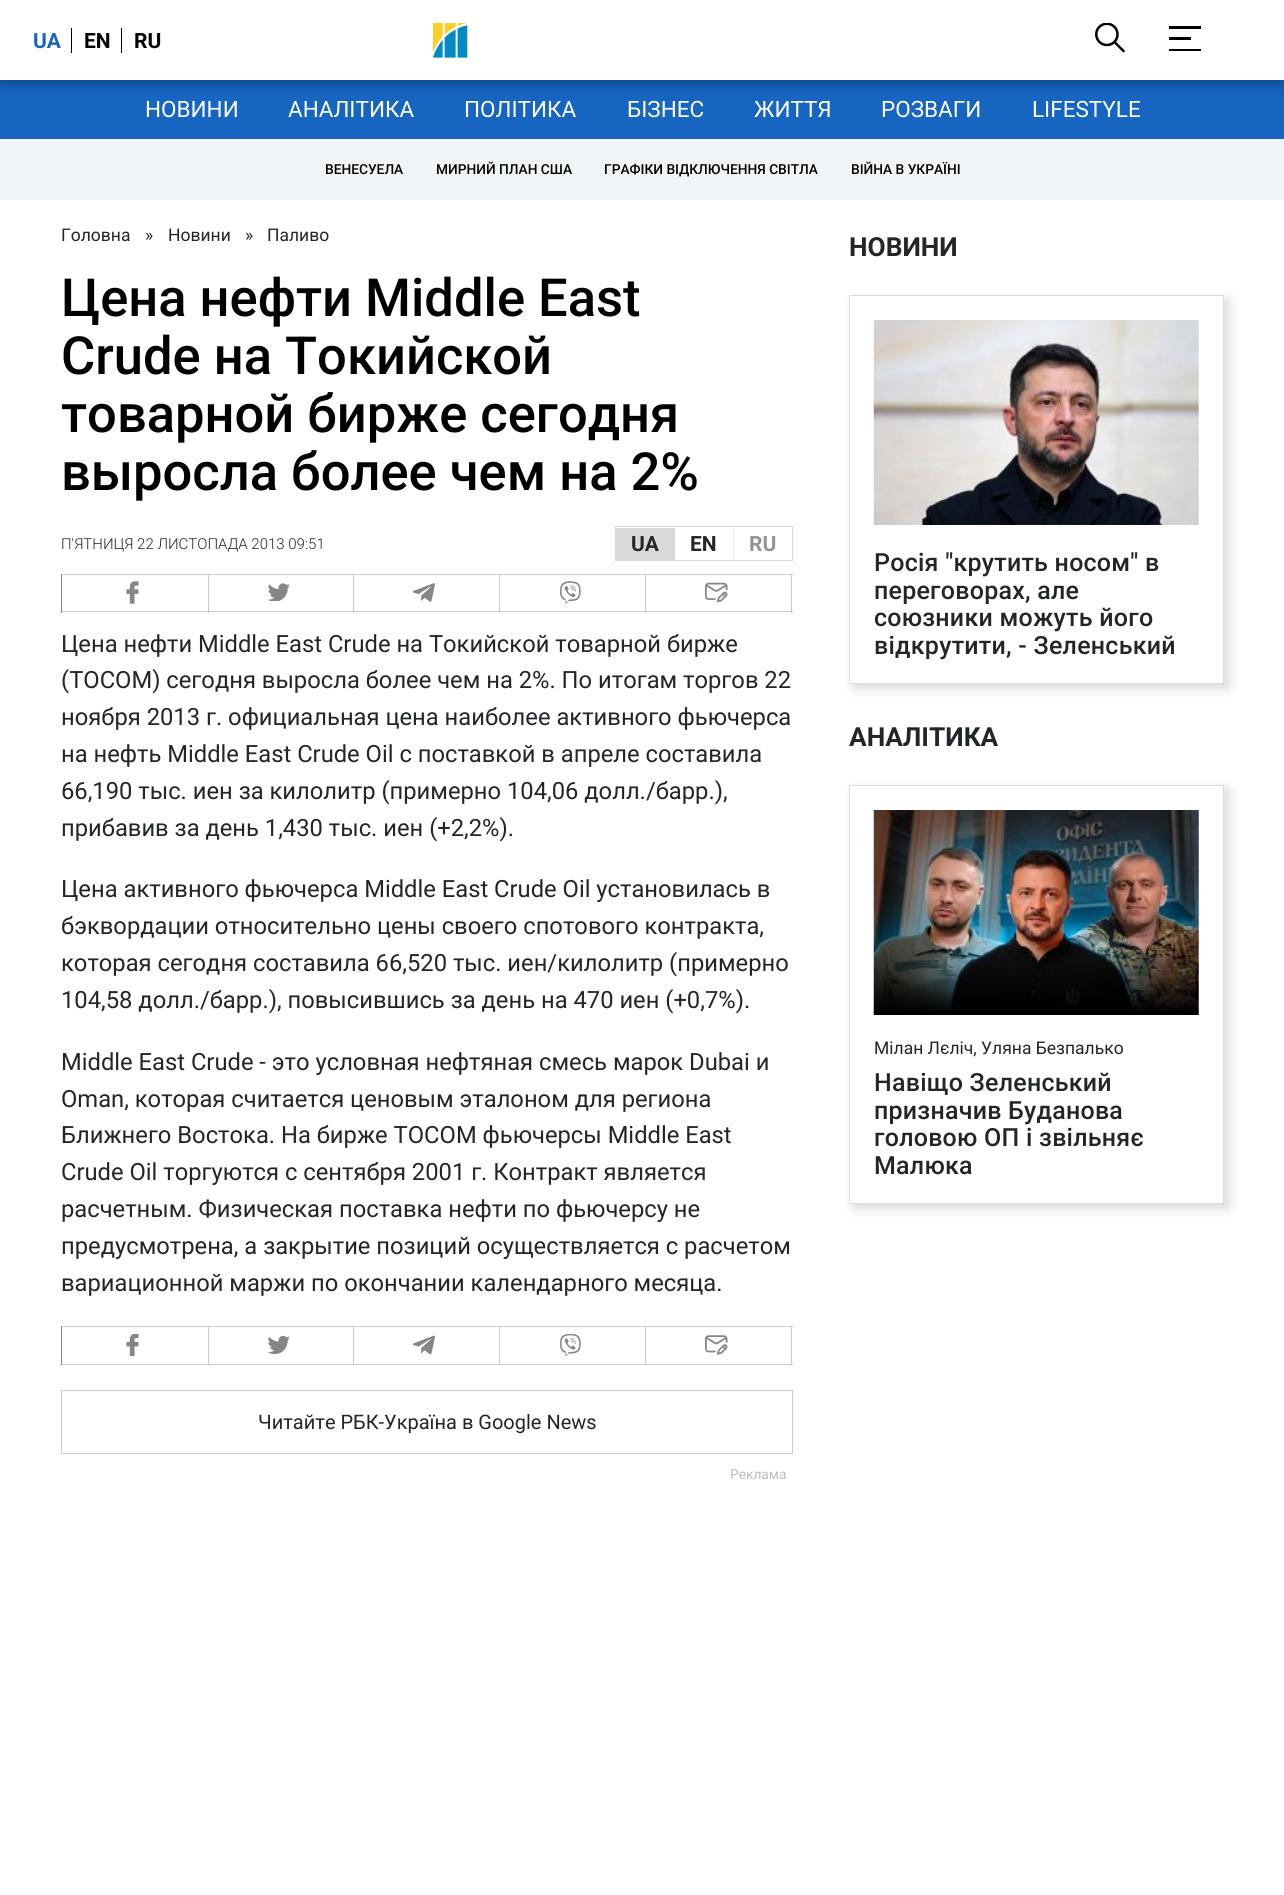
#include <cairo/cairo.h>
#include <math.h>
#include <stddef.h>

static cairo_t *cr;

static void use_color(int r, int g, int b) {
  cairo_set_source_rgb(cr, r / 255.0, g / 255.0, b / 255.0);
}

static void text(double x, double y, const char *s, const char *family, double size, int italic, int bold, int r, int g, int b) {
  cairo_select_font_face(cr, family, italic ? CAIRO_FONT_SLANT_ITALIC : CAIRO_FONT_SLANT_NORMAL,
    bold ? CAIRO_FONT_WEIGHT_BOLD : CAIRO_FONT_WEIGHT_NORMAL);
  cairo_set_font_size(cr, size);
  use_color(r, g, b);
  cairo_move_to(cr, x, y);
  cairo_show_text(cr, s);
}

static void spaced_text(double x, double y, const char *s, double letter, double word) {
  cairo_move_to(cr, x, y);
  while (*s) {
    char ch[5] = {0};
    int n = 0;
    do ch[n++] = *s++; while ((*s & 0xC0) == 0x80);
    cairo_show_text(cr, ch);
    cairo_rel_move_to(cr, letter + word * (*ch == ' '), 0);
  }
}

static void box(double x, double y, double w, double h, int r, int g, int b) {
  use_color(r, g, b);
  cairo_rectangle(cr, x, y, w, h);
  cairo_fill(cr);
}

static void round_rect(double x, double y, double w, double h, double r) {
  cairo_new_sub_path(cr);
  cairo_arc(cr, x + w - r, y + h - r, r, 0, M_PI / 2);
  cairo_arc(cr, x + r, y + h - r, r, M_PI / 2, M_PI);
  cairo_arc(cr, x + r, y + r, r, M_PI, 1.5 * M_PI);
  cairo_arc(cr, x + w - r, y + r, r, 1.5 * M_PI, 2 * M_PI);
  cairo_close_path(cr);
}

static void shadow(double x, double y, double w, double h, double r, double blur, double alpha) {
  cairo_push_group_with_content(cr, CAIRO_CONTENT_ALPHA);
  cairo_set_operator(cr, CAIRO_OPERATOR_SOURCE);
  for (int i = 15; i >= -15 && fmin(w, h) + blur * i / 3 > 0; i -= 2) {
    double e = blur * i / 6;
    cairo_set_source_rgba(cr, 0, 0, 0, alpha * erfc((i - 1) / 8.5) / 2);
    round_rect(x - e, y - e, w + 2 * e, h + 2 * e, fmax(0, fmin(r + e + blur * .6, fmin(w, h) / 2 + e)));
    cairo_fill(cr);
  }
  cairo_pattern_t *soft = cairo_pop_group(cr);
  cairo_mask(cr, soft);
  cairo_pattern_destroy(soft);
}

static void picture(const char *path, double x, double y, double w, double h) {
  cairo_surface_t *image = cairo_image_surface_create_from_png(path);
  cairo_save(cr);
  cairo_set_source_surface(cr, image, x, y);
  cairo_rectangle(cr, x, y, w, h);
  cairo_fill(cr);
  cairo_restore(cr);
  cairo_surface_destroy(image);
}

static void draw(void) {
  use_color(255, 255, 255);
  cairo_paint(cr);
  box(0, 80, 1284, 59, 22, 101, 193);
  cairo_save(cr);
  cairo_rectangle(cr, 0, 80, 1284, 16);
  cairo_clip(cr);
  use_color(0, 0, 0);
  shadow(0, 1, 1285, 80, 0, 9.5, 0.38);
  cairo_restore(cr);
  box(71, 28, 1, 25, 0, 0, 0);
  box(121, 28, 1, 25, 0, 0, 0);
  picture("img_01.png", 433, 23, 35, 35);
  picture("img_02.png", 1095, 23, 30, 30);
  box(1169, 26, 32, 3, 0, 0, 0);
  box(1169, 37, 22, 3, 0, 0, 0);
  box(1169, 49, 32, 2, 0, 0, 0);
  box(0, 139, 1284, 61, 241, 244, 246);
  cairo_rectangle(cr, 615.5, 526.5, 177, 34);
  use_color(217, 217, 217);
  cairo_set_line_width(cr, 1);
  cairo_stroke(cr);
  box(616, 528, 59, 32, 217, 217, 217);
  box(733, 528, 1, 32, 236, 236, 236);
  box(61, 574, 732, 1, 204, 204, 204);
  box(208, 574, 1, 39, 204, 204, 204);
  box(61, 611, 148, 1, 204, 204, 204);
  box(61, 574, 1, 39, 134, 134, 134);
  picture("img_03.png", 126, 581, 13, 23);
  box(353, 574, 1, 39, 204, 204, 204);
  box(209, 611, 145, 1, 204, 204, 204);
  picture("img_04.png", 267, 583, 23, 18);
  box(499, 574, 1, 39, 204, 204, 204);
  box(354, 611, 146, 1, 204, 204, 204);
  picture("img_05.png", 413, 583, 22, 19);
  box(645, 574, 1, 39, 204, 204, 204);
  box(500, 611, 146, 1, 204, 204, 204);
  picture("img_06.png", 560, 581, 21, 23);
  box(791, 574, 1, 39, 204, 204, 204);
  box(646, 611, 147, 1, 204, 204, 204);
  picture("img_07.png", 705, 582, 23, 21);
  box(61, 1326, 732, 1, 204, 204, 204);
  box(208, 1326, 1, 39, 204, 204, 204);
  box(61, 1364, 148, 1, 204, 204, 204);
  box(61, 1326, 1, 39, 134, 134, 134);
  picture("img_08.png", 126, 1334, 13, 22);
  box(353, 1326, 1, 39, 204, 204, 204);
  box(209, 1364, 145, 1, 204, 204, 204);
  picture("img_09.png", 267, 1335, 23, 19);
  box(499, 1326, 1, 39, 204, 204, 204);
  box(354, 1364, 146, 1, 204, 204, 204);
  picture("img_10.png", 413, 1335, 22, 20);
  box(645, 1326, 1, 39, 204, 204, 204);
  box(500, 1364, 146, 1, 204, 204, 204);
  picture("img_11.png", 560, 1334, 21, 22);
  box(791, 1326, 1, 39, 204, 204, 204);
  box(646, 1364, 147, 1, 204, 204, 204);
  picture("img_12.png", 705, 1335, 23, 20);
  cairo_rectangle(cr, 61.5, 1390.5, 731, 63);
  cairo_stroke(cr);
  cairo_save(cr);
  cairo_set_fill_rule(cr, CAIRO_FILL_RULE_EVEN_ODD);
  cairo_new_path(cr);
  cairo_move_to(cr, 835, 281);
  cairo_line_to(cr, 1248, 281);
  cairo_line_to(cr, 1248, 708);
  cairo_line_to(cr, 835, 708);
  cairo_close_path(cr);
  cairo_move_to(cr, 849, 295);
  cairo_line_to(cr, 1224, 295);
  cairo_line_to(cr, 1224, 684);
  cairo_line_to(cr, 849, 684);
  cairo_close_path(cr);
  cairo_clip(cr);
  use_color(0, 0, 0);
  shadow(854, 300, 375, 389, 0, 6, 0.15);
  cairo_restore(cr);
  cairo_rectangle(cr, 849.5, 295.5, 374, 388);
  use_color(219, 219, 219);
  cairo_stroke(cr);
  picture("img_13.png", 873, 320, 326, 205);
  cairo_save(cr);
  cairo_set_fill_rule(cr, CAIRO_FILL_RULE_EVEN_ODD);
  cairo_new_path(cr);
  cairo_move_to(cr, 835, 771);
  cairo_line_to(cr, 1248, 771);
  cairo_line_to(cr, 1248, 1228);
  cairo_line_to(cr, 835, 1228);
  cairo_close_path(cr);
  cairo_move_to(cr, 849, 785);
  cairo_line_to(cr, 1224, 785);
  cairo_line_to(cr, 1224, 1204);
  cairo_line_to(cr, 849, 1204);
  cairo_close_path(cr);
  cairo_clip(cr);
  use_color(0, 0, 0);
  shadow(854, 790, 375, 419, 0, 6, 0.15);
  cairo_restore(cr);
  cairo_rectangle(cr, 849.5, 785.5, 374, 418);
  cairo_stroke(cr);
  picture("img_14.png", 873, 810, 326, 205);
  text(33, 48, "UA", "Roboto", 21, 0, 1, 22, 101, 193);
  text(84, 48, "EN", "Roboto", 21, 0, 1, 0, 0, 0);
  text(134, 48, "RU", "Roboto", 21, 0, 1, 0, 0, 0);
  text(145, 117, "НОВИНИ", "Roboto", 22.5, 0, 0, 255, 255, 255);
  text(288, 117, "АНАЛІТИКА", "Roboto", 22.5, 0, 0, 255, 255, 255);
  text(464, 117, "ПОЛІТИКА", "Roboto", 22.5, 0, 0, 255, 255, 255);
  text(627, 117, "БІЗНЕС", "Roboto", 22.5, 0, 0, 255, 255, 255);
  text(754, 117, "ЖИТТЯ", "Roboto", 22.5, 0, 0, 255, 255, 255);
  text(881, 117, "РОЗВАГИ", "Roboto", 22.5, 0, 0, 255, 255, 255);
  text(1032, 117, "LIFESTYLE", "Roboto", 22.5, 0, 0, 255, 255, 255);
  text(325, 174, "ВЕНЕСУЕЛА", "Roboto Medium", 13.75, 0, 0, 0, 0, 0);
  text(436, 174, "МИРНИЙ ПЛАН США", "Roboto Medium", 13.75, 0, 0, 0, 0, 0);
  text(604, 174, "ГРАФІКИ ВІДКЛЮЧЕННЯ СВІТЛА", "Roboto Medium", 13.75, 0, 0, 0, 0, 0);
  text(851, 174, "ВІЙНА В УКРАЇНІ", "Roboto Medium", 13.75, 0, 0, 0, 0, 0);
  text(61, 241, "Головна", "Roboto", 17.5, 0, 0, 34, 38, 41);
  text(145, 241, "»", "Roboto", 17.5, 0, 0, 34, 38, 41);
  text(168, 241, "Новини", "Roboto", 17.5, 0, 0, 34, 38, 41);
  text(245, 241, "»", "Roboto", 17.5, 0, 0, 34, 38, 41);
  text(267, 241, "Паливо", "Roboto", 17.5, 0, 0, 34, 38, 41);
  text(61, 316, "Цена нефти Middle East", "Roboto Medium", 52.5, 0, 0, 0, 0, 0);
  text(61, 374, "Crude на Токийской", "Roboto Medium", 52.5, 0, 0, 0, 0, 0);
  text(61, 432, "товарной бирже сегодня", "Roboto Medium", 52.5, 0, 0, 0, 0, 0);
  text(61, 490, "выросла более чем на 2%", "Roboto Medium", 52.5, 0, 0, 0, 0, 0);
  text(61, 549, "П'ЯТНИЦЯ 22 ЛИСТОПАДА 2013 09:51", "Roboto Light", 15, 0, 0, 34, 38, 41);
  text(631, 551, "UA", "Roboto", 21, 0, 1, 34, 38, 41);
  text(690, 551, "EN", "Roboto", 21, 0, 1, 34, 38, 41);
  text(749, 551, "RU", "Roboto", 21, 0, 1, 145, 147, 148);
  text(61, 652, "Цена нефти Middle East Crude на Tокийской товарной бирже", "Roboto", 23.75, 0, 0, 34, 38, 41);
  text(61, 688, "(ТOCOM) сегодня выросла более чем на 2%. По итогам торгов 22", "Roboto", 23.75, 0, 0, 34, 38, 41);
  text(61, 725, "ноября 2013 г. официальная цена наиболее активного фьючерса", "Roboto", 23.75, 0, 0, 34, 38, 41);
  text(61, 762, "на нефть Middle East Crude Oil с поставкой в апреле составила", "Roboto", 23.75, 0, 0, 34, 38, 41);
  text(61, 799, "66,190 тыс. иен за килолитр (примерно 104,06 долл./барр.),", "Roboto", 23.75, 0, 0, 34, 38, 41);
  text(61, 836, "прибавив за день 1,430 тыс. иен (+2,2%).", "Roboto", 23.75, 0, 0, 34, 38, 41);
  text(61, 897, "Цена активного фьючерса Middle East Crude Oil установилась в", "Roboto", 23.75, 0, 0, 34, 38, 41);
  text(61, 934, "бэквордации относительно цены своего спотового контракта,", "Roboto", 23.75, 0, 0, 34, 38, 41);
  text(61, 971, "которая сегодня составила 66,520 тыс. иен/килолитр (примерно", "Roboto", 23.75, 0, 0, 34, 38, 41);
  text(61, 1008, "104,58 долл./барр.), повысившись за день на 470 иен (+0,7%).", "Roboto", 23.75, 0, 0, 34, 38, 41);
  text(61, 1070, "Middle East Crude - это условная нефтяная смесь марок Dubai и", "Roboto", 23.75, 0, 0, 34, 38, 41);
  text(61, 1107, "Oman, которая считается ценовым эталоном для региона", "Roboto", 23.75, 0, 0, 34, 38, 41);
  text(61, 1143, "Ближнего Востока. На бирже TOCOM фьючерсы Middle East", "Roboto", 23.75, 0, 0, 34, 38, 41);
  text(61, 1180, "Crude Oil торгуются с сентября 2001 г. Контракт является", "Roboto", 23.75, 0, 0, 34, 38, 41);
  text(61, 1217, "расчетным. Физическая поставка нефти по фьючерсу не", "Roboto", 23.75, 0, 0, 34, 38, 41);
  text(61, 1254, "предусмотрена, а закрытие позиций осуществляется с расчетом", "Roboto", 23.75, 0, 0, 34, 38, 41);
  text(61, 1291, "вариационной маржи по окончании календарного месяца.", "Roboto", 23.75, 0, 0, 34, 38, 41);
  text(258, 1429, "Читайте РБК-Україна в Google News", "Roboto", 20, 0, 0, 34, 38, 41);
  text(730, 1479, "Реклама", "Roboto", 13.75, 0, 0, 188, 187, 191);
  text(849, 256, "НОВИНИ", "Roboto", 26.25, 0, 1, 34, 38, 41);
  cairo_select_font_face(cr, "Roboto Medium", CAIRO_FONT_SLANT_NORMAL, CAIRO_FONT_WEIGHT_NORMAL);
  cairo_set_font_size(cr, 25);
  spaced_text(874, 571, "Росія \"крутить носом\" в", 0.25, 0);
  spaced_text(874, 599, "переговорах, але", 0.25, 0);
  spaced_text(874, 626, "союзники можуть його", 0.25, 0);
  spaced_text(874, 654, "відкрутити, - Зеленський", 0.25, 0);
  text(849, 746, "АНАЛІТИКА", "Roboto", 26.25, 0, 1, 34, 38, 41);
  text(874, 1054, "Мілан Лєліч, Уляна Безпалько", "Roboto", 17.5, 0, 0, 34, 38, 41);
  cairo_select_font_face(cr, "Roboto Medium", CAIRO_FONT_SLANT_NORMAL, CAIRO_FONT_WEIGHT_NORMAL);
  cairo_set_font_size(cr, 25);
  spaced_text(874, 1091, "Навіщо Зеленський", 0.25, 0);
  spaced_text(874, 1119, "призначив Буданова", 0.25, 0);
  spaced_text(874, 1146, "головою ОП і звільняє", 0.25, 0);
  spaced_text(874, 1174, "Малюка", 0.25, 0);
}

int main(void) {
  cairo_surface_t *surface = cairo_image_surface_create(CAIRO_FORMAT_RGB24, 1284, 1895);
  cr = cairo_create(surface);
  cairo_font_options_t *options = cairo_font_options_create();
  cairo_font_options_set_hint_metrics(options, CAIRO_HINT_METRICS_OFF);
  cairo_font_options_set_hint_style(options, CAIRO_HINT_STYLE_NONE);
  cairo_set_font_options(cr, options);
  cairo_set_miter_limit(cr, 4);
  draw();
  cairo_surface_write_to_png(surface, "out.png");
  cairo_font_options_destroy(options);
  cairo_destroy(cr);
  cairo_surface_destroy(surface);
  return 0;
}
